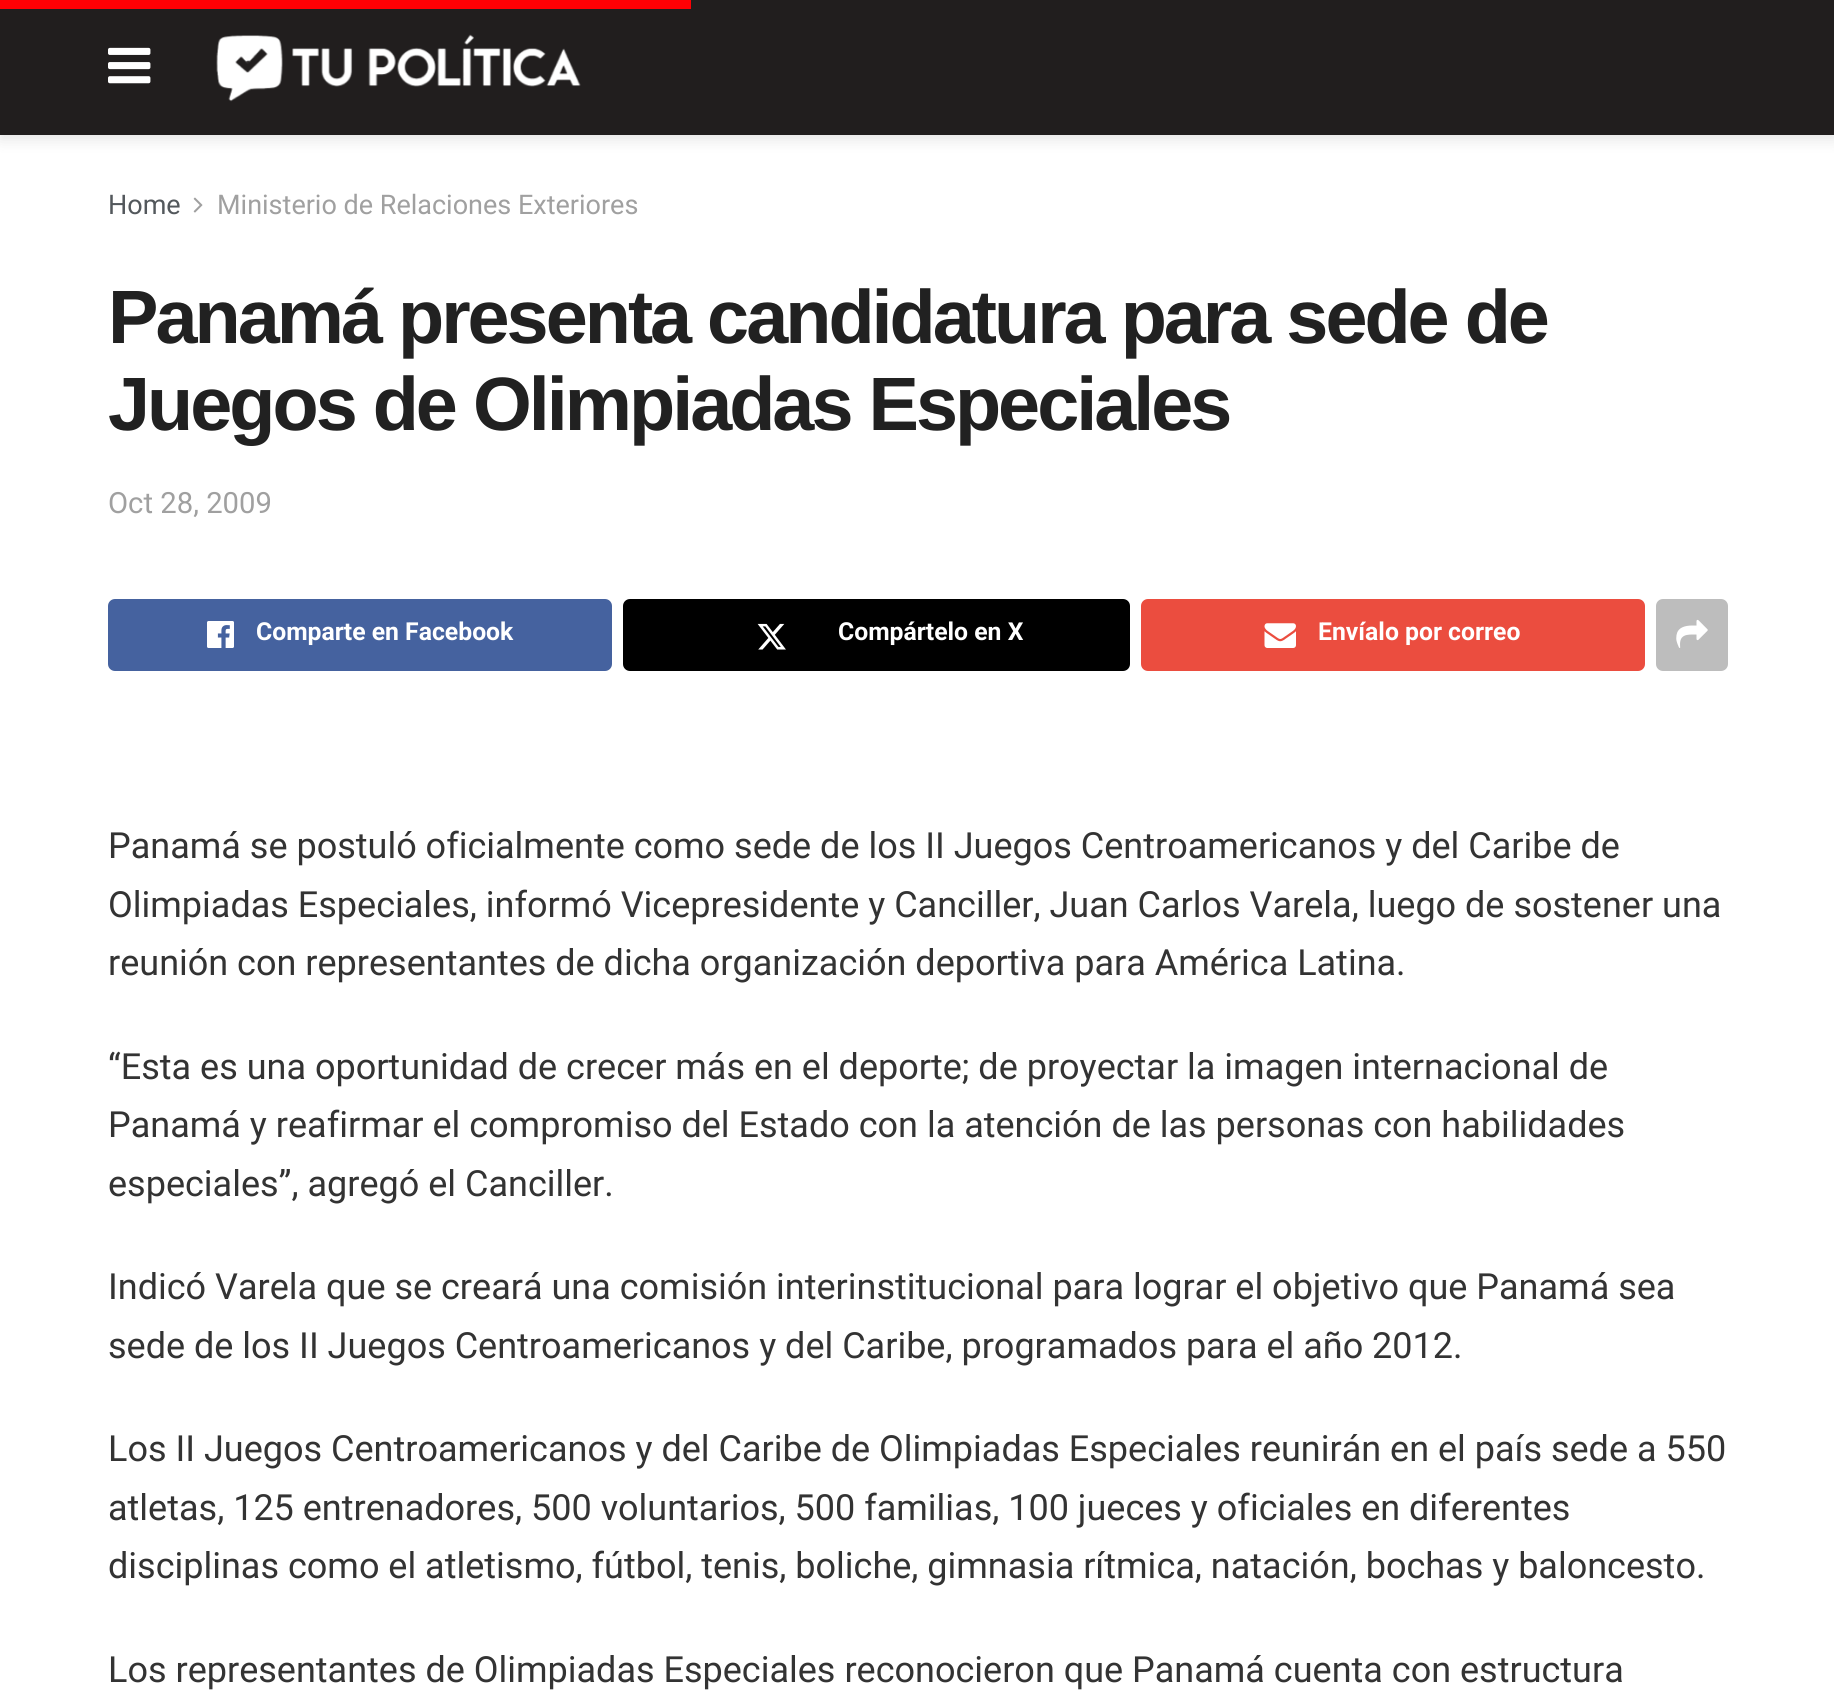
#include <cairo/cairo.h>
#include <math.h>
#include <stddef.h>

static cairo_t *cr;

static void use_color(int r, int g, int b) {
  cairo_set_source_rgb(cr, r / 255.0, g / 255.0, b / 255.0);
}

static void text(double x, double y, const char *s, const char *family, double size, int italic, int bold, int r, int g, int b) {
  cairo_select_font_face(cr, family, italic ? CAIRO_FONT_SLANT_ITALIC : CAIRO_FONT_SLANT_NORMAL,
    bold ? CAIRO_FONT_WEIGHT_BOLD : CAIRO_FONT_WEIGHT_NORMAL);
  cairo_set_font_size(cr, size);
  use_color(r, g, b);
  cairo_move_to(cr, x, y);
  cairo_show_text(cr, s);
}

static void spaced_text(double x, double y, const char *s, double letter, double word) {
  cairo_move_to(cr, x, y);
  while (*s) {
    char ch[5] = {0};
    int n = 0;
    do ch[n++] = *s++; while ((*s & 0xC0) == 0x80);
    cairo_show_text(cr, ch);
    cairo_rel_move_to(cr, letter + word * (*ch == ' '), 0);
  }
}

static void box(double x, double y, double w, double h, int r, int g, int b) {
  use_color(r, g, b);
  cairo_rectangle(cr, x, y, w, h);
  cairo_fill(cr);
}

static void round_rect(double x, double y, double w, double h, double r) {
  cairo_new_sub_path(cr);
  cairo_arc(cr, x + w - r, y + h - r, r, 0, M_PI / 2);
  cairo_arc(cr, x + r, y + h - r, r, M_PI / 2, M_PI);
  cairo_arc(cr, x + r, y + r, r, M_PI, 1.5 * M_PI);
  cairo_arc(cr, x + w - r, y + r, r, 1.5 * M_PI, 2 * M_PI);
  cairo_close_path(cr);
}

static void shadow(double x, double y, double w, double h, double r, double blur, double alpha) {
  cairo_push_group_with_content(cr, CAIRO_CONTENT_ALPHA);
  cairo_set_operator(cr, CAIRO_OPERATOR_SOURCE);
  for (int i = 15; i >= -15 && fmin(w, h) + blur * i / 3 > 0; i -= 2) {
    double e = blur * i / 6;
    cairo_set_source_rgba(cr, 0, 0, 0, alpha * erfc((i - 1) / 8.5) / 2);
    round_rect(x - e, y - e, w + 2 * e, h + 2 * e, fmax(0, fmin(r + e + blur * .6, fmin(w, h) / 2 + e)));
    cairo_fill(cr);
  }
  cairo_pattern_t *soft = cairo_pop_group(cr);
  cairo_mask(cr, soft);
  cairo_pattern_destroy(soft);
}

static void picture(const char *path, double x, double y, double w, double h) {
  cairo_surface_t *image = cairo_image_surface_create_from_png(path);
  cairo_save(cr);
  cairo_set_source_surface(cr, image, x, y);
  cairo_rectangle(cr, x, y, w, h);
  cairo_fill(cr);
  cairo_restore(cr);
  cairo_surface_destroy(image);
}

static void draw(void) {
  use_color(255, 255, 255);
  cairo_paint(cr);
  use_color(0, 0, 0);
  shadow(0, 5, 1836, 135, 0, 7, 0.1);
  box(0, 0, 1834, 135, 33, 30, 30);
  box(0, 0, 691, 9, 255, 0, 4);
  picture("img_01.png", 108, 47, 43, 37);
  picture("img_02.png", 216, 34, 365, 68);
  picture("img_03.png", 193, 197, 10, 16);
  use_color(69, 98, 159);
  round_rect(108, 599, 504, 72, 7);
  cairo_fill(cr);
  picture("img_04.png", 207, 621, 27, 27);
  use_color(0, 0, 0);
  round_rect(623, 599, 507, 72, 7);
  cairo_fill(cr);
  picture("img_05.png", 757, 623, 29, 27);
  use_color(235, 77, 63);
  round_rect(1141, 599, 504, 72, 7);
  cairo_fill(cr);
  picture("img_06.png", 1264, 623, 32, 25);
  use_color(189, 189, 189);
  round_rect(1656, 599, 72, 72, 7);
  cairo_fill(cr);
  picture("img_07.png", 1676, 619, 32, 29);
  text(108, 214, "Home", "Roboto", 27, 0, 0, 83, 88, 92);
  text(217, 214, "Ministerio de Relaciones Exteriores", "Roboto", 27, 0, 0, 160, 160, 160);
  cairo_select_font_face(cr, "Liberation Sans", CAIRO_FONT_SLANT_NORMAL, CAIRO_FONT_WEIGHT_BOLD);
  cairo_set_font_size(cr, 75.6);
  use_color(33, 33, 33);
  spaced_text(108, 343, "Panamá presenta candidatura para sede de", -3, 0);
  spaced_text(108, 430, "Juegos de Olimpiadas Especiales", -3, 0);
  text(108, 513, "Oct 28, 2009", "Roboto", 29.25, 0, 0, 160, 160, 160);
  text(256, 640, "Comparte en Facebook", "Roboto", 24.75, 0, 1, 255, 255, 255);
  text(838, 640, "Compártelo en X", "Roboto", 24.75, 0, 1, 255, 255, 255);
  text(1318, 640, "Envíalo por correo", "Roboto", 24.75, 0, 1, 255, 255, 255);
  text(108, 858, "Panamá se postuló oficialmente como sede de los II Juegos Centroamericanos y del Caribe de", "Roboto", 36, 0, 0, 51, 51, 51);
  text(108, 917, "Olimpiadas Especiales, informó Vicepresidente y Canciller, Juan Carlos Varela, luego de sostener una", "Roboto", 36, 0, 0, 51, 51, 51);
  text(108, 975, "reunión con representantes de dicha organización deportiva para América Latina.", "Roboto", 36, 0, 0, 51, 51, 51);
  text(108, 1079, "“Esta es una oportunidad de crecer más en el deporte; de proyectar la imagen internacional de", "Roboto", 36, 0, 0, 51, 51, 51);
  text(108, 1137, "Panamá y reafirmar el compromiso del Estado con la atención de las personas con habilidades", "Roboto", 36, 0, 0, 51, 51, 51);
  text(108, 1196, "especiales”, agregó el Canciller.", "Roboto", 36, 0, 0, 51, 51, 51);
  text(108, 1299, "Indicó Varela que se creará una comisión interinstitucional para lograr el objetivo que Panamá sea", "Roboto", 36, 0, 0, 51, 51, 51);
  text(108, 1358, "sede de los II Juegos Centroamericanos y del Caribe, programados para el año 2012.", "Roboto", 36, 0, 0, 51, 51, 51);
  text(108, 1461, "Los II Juegos Centroamericanos y del Caribe de Olimpiadas Especiales reunirán en el país sede a 550", "Roboto", 36, 0, 0, 51, 51, 51);
  text(108, 1520, "atletas, 125 entrenadores, 500 voluntarios, 500 familias, 100 jueces y oficiales en diferentes", "Roboto", 36, 0, 0, 51, 51, 51);
  text(108, 1578, "disciplinas como el atletismo, fútbol, tenis, boliche, gimnasia rítmica, natación, bochas y baloncesto.", "Roboto", 36, 0, 0, 51, 51, 51);
  text(108, 1682, "Los representantes de Olimpiadas Especiales reconocieron que Panamá cuenta con estructura", "Roboto", 36, 0, 0, 51, 51, 51);
}

int main(void) {
  cairo_surface_t *surface = cairo_image_surface_create(CAIRO_FORMAT_RGB24, 1834, 1694);
  cr = cairo_create(surface);
  cairo_font_options_t *options = cairo_font_options_create();
  cairo_font_options_set_hint_metrics(options, CAIRO_HINT_METRICS_OFF);
  cairo_font_options_set_hint_style(options, CAIRO_HINT_STYLE_NONE);
  cairo_set_font_options(cr, options);
  cairo_set_miter_limit(cr, 4);
  draw();
  cairo_surface_write_to_png(surface, "out.png");
  cairo_font_options_destroy(options);
  cairo_destroy(cr);
  cairo_surface_destroy(surface);
  return 0;
}
